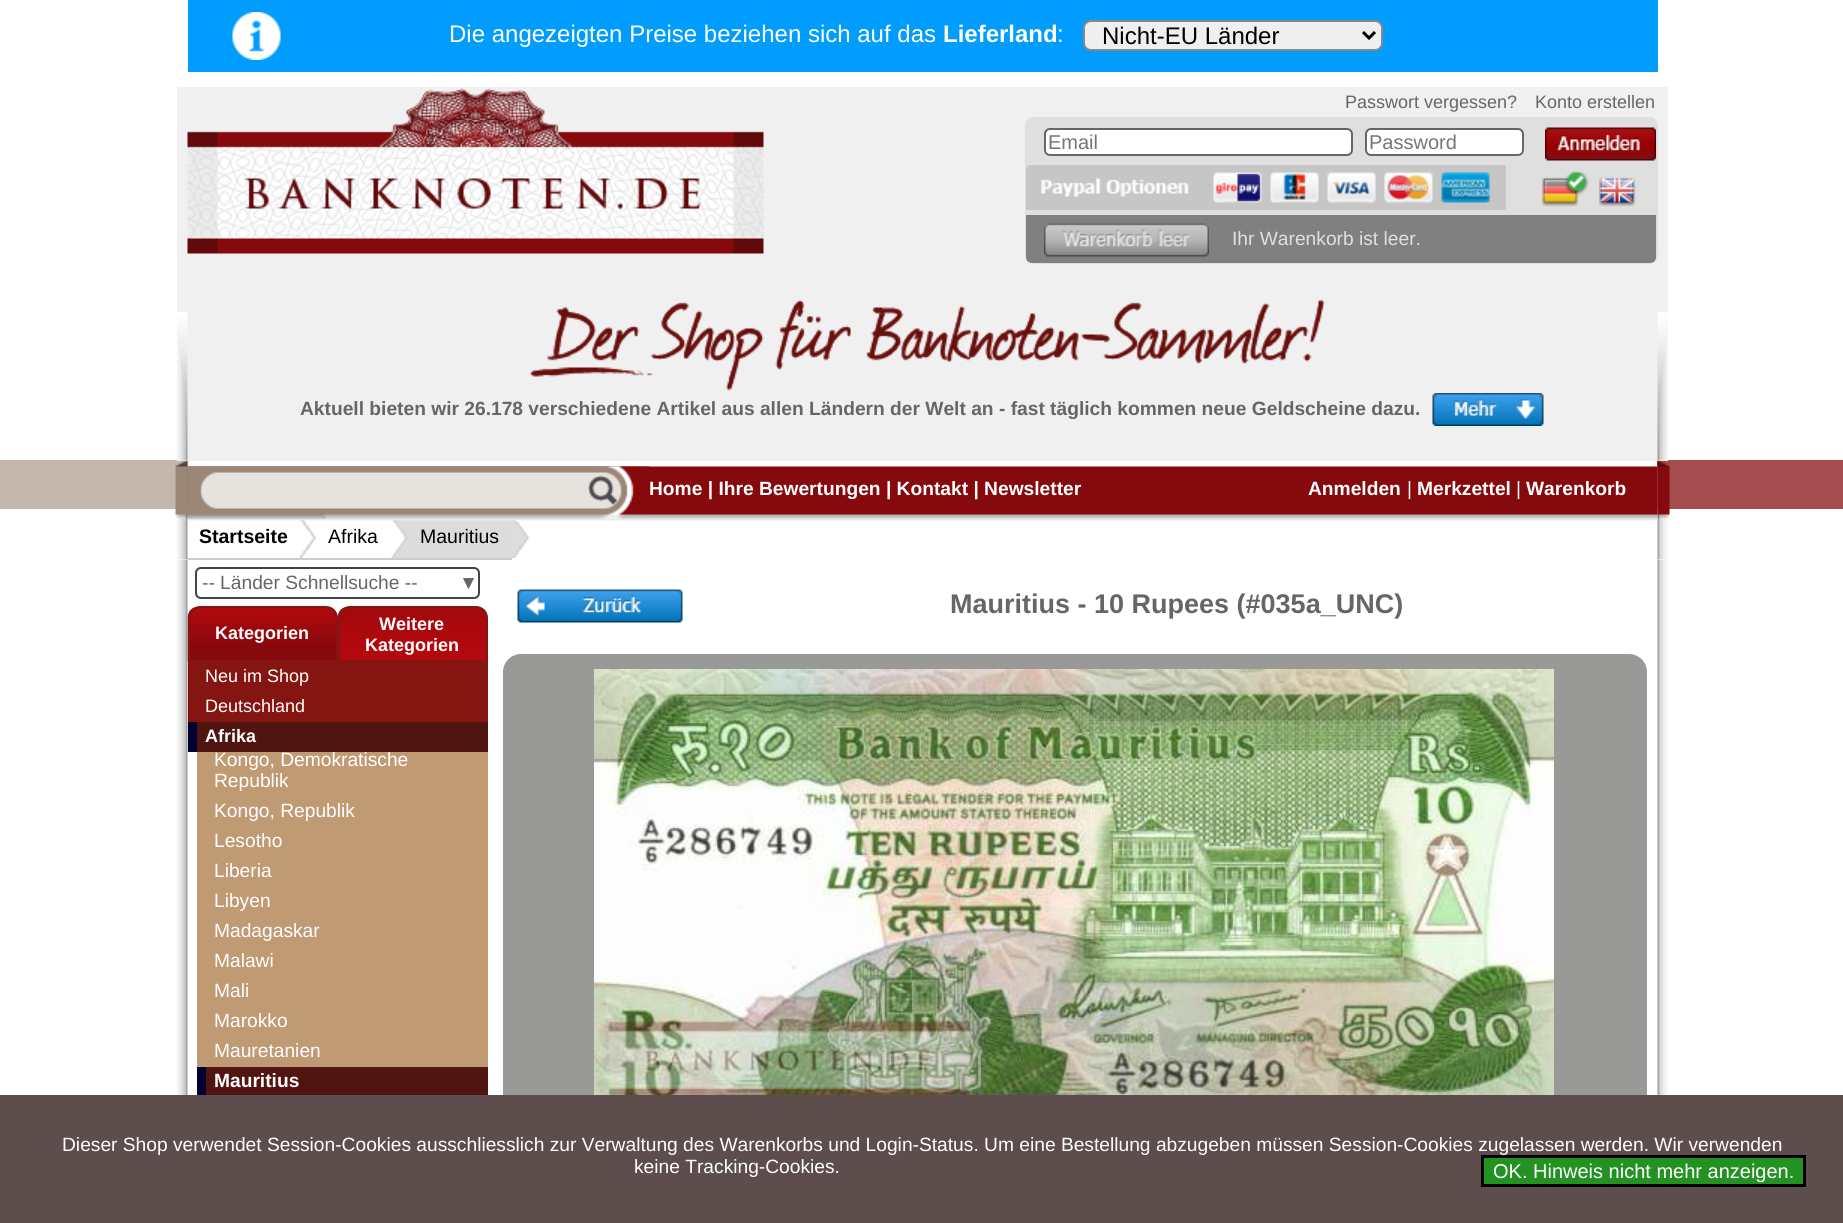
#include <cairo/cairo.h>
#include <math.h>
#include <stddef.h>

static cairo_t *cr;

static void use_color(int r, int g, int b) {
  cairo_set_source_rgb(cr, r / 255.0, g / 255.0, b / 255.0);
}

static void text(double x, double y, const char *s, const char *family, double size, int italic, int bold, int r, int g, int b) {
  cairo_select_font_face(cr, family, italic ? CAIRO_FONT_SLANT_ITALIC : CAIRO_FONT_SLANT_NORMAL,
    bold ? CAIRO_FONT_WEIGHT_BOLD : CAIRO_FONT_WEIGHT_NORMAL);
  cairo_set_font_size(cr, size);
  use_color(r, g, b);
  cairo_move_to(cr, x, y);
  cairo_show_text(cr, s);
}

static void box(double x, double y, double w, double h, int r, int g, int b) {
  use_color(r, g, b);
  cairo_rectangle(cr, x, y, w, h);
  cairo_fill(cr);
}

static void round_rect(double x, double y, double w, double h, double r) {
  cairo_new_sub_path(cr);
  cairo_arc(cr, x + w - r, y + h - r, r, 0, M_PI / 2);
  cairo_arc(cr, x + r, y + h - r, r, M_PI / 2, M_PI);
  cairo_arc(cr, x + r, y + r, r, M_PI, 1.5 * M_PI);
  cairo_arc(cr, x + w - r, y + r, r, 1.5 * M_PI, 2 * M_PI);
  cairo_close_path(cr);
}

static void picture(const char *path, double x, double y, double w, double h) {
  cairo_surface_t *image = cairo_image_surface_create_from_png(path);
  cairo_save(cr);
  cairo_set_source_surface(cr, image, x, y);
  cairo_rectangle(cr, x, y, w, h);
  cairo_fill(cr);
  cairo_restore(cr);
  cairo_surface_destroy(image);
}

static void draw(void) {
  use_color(255, 255, 255);
  cairo_paint(cr);
  box(188, 0, 1470, 72, 0, 157, 255);
  picture("img_01.png", 232, 12, 49, 48);
  use_color(239, 239, 239);
  round_rect(1084, 21, 298, 29, 7);
  cairo_fill_preserve(cr);
  use_color(136, 136, 136);
  cairo_stroke(cr);
  cairo_new_path(cr);
  cairo_move_to(cr, 1363, 32);
  cairo_line_to(cr, 1369, 38);
  cairo_line_to(cr, 1375, 32);
  use_color(0, 0, 0);
  cairo_set_line_width(cr, 3);
  cairo_stroke(cr);
  box(0, 460, 188, 49, 195, 183, 174);
  picture("img_16.png", 177, 519, 1491, 41);
  picture("img_17.png", 300, 520, 17, 38);
  picture("img_18.png", 391, 520, 17, 38);
  box(408, 520, 104, 38, 220, 220, 220);
  picture("img_19.png", 512, 520, 18, 38);
  picture("img_12.png", 187, 466, 1471, 55);
  picture("img_13.png", 187, 466, 463, 53);
  picture("img_11.png", 175, 460, 13, 59);
  box(1657, 460, 186, 49, 165, 76, 79);
  picture("img_15.png", 1657, 460, 13, 59);
  box(177, 87, 1491, 374, 240, 240, 240);
  picture("img_02.png", 177, 312, 1491, 149);
  picture("img_03.png", 187, 88, 577, 166);
  use_color(223, 223, 223);
  round_rect(1026, 118, 631, 145, 8);
  cairo_fill_preserve(cr);
  cairo_set_line_width(cr, 2);
  cairo_stroke(cr);
  use_color(255, 255, 255);
  round_rect(1045, 129, 307, 26, 5);
  cairo_fill_preserve(cr);
  use_color(102, 102, 102);
  cairo_stroke(cr);
  use_color(255, 255, 255);
  round_rect(1366, 129, 157, 26, 5);
  cairo_fill_preserve(cr);
  use_color(102, 102, 102);
  cairo_stroke(cr);
  picture("img_04.png", 1545, 127, 111, 34);
  picture("img_05.png", 1026, 165, 480, 45);
  picture("img_06.png", 1542, 171, 47, 36);
  picture("img_07.png", 1599, 177, 37, 30);
  use_color(128, 128, 128);
  cairo_new_path(cr);
  cairo_move_to(cr, 1026, 215);
  cairo_line_to(cr, 1656, 215);
  cairo_line_to(cr, 1656, 257);
  cairo_curve_to(cr, 1656, 260.5, 1653.5, 263, 1650, 263);
  cairo_line_to(cr, 1032, 263);
  cairo_curve_to(cr, 1028.5, 263, 1026, 260.5, 1026, 257);
  cairo_close_path(cr);
  cairo_fill(cr);
  picture("img_08.png", 1044, 223, 165, 34);
  picture("img_09.png", 530, 299, 795, 92);
  picture("img_10.png", 1432, 393, 112, 33);
  picture("img_14.png", 588, 475, 30, 31);
  box(188, 558, 324, 2, 204, 204, 204);
  picture("img_20.png", 177, 560, 1491, 535);
  round_rect(196, 568, 283, 30, 5);
  use_color(68, 68, 68);
  cairo_stroke(cr);
  picture("img_21.png", 187, 607, 151, 55);
  cairo_new_path(cr);
  cairo_move_to(cr, 200, 607);
  cairo_line_to(cr, 326, 607);
  cairo_curve_to(cr, 332, 607, 337, 612, 337, 618);
  cairo_line_to(cr, 337, 661);
  cairo_line_to(cr, 189, 661);
  cairo_line_to(cr, 189, 618);
  cairo_curve_to(cr, 189, 612, 194, 607, 200, 607);
  cairo_close_path(cr);
  use_color(133, 21, 17);
  cairo_stroke(cr);
  picture("img_22.png", 337, 607, 151, 54);
  cairo_new_path(cr);
  cairo_move_to(cr, 350, 607);
  cairo_line_to(cr, 476, 607);
  cairo_curve_to(cr, 482, 607, 487, 612, 487, 618);
  cairo_line_to(cr, 487, 661);
  cairo_line_to(cr, 339, 661);
  cairo_line_to(cr, 339, 618);
  cairo_curve_to(cr, 339, 612, 344, 607, 350, 607);
  cairo_close_path(cr);
  cairo_stroke(cr);
  box(188, 662, 300, 60, 133, 21, 17);
  box(188, 722, 9, 30, 0, 0, 51);
  box(197, 722, 291, 30, 80, 21, 17);
  box(197, 752, 291, 315, 192, 154, 115);
  box(197, 1067, 9, 28, 0, 0, 51);
  box(206, 1067, 282, 28, 80, 21, 17);
  picture("img_23.png", 517, 589, 166, 34);
  use_color(153, 154, 152);
  round_rect(503, 654, 1144, 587, 18);
  cairo_fill(cr);
  picture("img_24.png", 594, 669, 960, 426);
  box(0, 1095, 1843, 128, 94, 77, 77);
  use_color(35, 146, 35);
  cairo_rectangle(cr, 1482.5, 1156.5, 322, 29);
  cairo_fill_preserve(cr);
  use_color(0, 0, 0);
  cairo_set_line_width(cr, 3);
  cairo_stroke(cr);
  text(449, 42, "Die angezeigten Preise beziehen sich auf das", "Liberation Sans", 24, 0, 0, 255, 255, 255);
  text(943, 42, "Lieferland", "Liberation Sans", 24, 0, 1, 255, 255, 255);
  text(1057, 42, ":", "Liberation Sans", 24, 0, 0, 255, 255, 255);
  text(1102, 44, "Nicht-EU Länder", "Liberation Sans", 24, 0, 0, 0, 0, 0);
  text(1345, 108, "Passwort vergessen?", "Liberation Sans", 18, 0, 0, 102, 102, 102);
  text(1535, 108, "Konto erstellen", "Liberation Sans", 18, 0, 0, 102, 102, 102);
  text(1048, 149, "Email", "Liberation Sans", 20, 0, 0, 117, 117, 117);
  text(1369, 149, "Password", "Liberation Sans", 20, 0, 0, 117, 117, 117);
  text(1232, 245, "Ihr Warenkorb ist leer.", "Liberation Sans", 19.2, 0, 0, 224, 224, 224);
  text(300, 415, "Aktuell bieten wir 26.178 verschiedene Artikel aus allen Ländern der Welt an - fast täglich kommen neue Geldscheine dazu.", "Liberation Sans", 19.2, 0, 1, 102, 102, 102);
  text(649, 495, "Home | Ihre Bewertungen | Kontakt | Newsletter", "Liberation Sans", 19.2, 0, 1, 255, 255, 255);
  text(1308, 495, "Anmelden", "Liberation Sans", 19.2, 0, 1, 255, 255, 255);
  text(1407, 495, "|", "Liberation Sans", 19.2, 0, 0, 255, 255, 255);
  text(1417, 495, "Merkzettel", "Liberation Sans", 19.2, 0, 1, 255, 255, 255);
  text(1516, 495, "|", "Liberation Sans", 19.2, 0, 0, 255, 255, 255);
  text(1526, 495, "Warenkorb", "Liberation Sans", 19.2, 0, 1, 255, 255, 255);
  text(199, 543, "Startseite", "Liberation Sans", 19.5, 0, 1, 0, 0, 0);
  text(328, 543, "Afrika", "Liberation Sans", 19.5, 0, 0, 0, 0, 0);
  text(420, 543, "Mauritius", "Liberation Sans", 19.5, 0, 0, 0, 0, 0);
  text(202, 589, "-- Länder Schnellsuche --", "Liberation Sans", 19.2, 0, 0, 102, 102, 102);
  text(459, 589, "▼", "Liberation Sans", 19.2, 0, 1, 102, 102, 102);
  text(215, 639, "Kategorien", "Liberation Sans", 18, 0, 1, 255, 255, 255);
  text(379, 630, "Weitere", "Liberation Sans", 18, 0, 1, 255, 255, 255);
  text(365, 651, "Kategorien", "Liberation Sans", 18, 0, 1, 255, 255, 255);
  text(205, 682, "Neu im Shop", "Liberation Sans", 18, 0, 0, 255, 255, 255);
  text(205, 712, "Deutschland", "Liberation Sans", 18, 0, 0, 255, 255, 255);
  text(205, 742, "Afrika", "Liberation Sans", 18, 0, 1, 255, 255, 255);
  text(214, 766, "Kongo, Demokratische", "Liberation Sans", 19.2, 0, 0, 255, 255, 255);
  text(214, 787, "Republik", "Liberation Sans", 19.2, 0, 0, 255, 255, 255);
  text(214, 817, "Kongo, Republik", "Liberation Sans", 19.2, 0, 0, 255, 255, 255);
  text(214, 847, "Lesotho", "Liberation Sans", 19.2, 0, 0, 255, 255, 255);
  text(214, 877, "Liberia", "Liberation Sans", 19.2, 0, 0, 255, 255, 255);
  text(214, 907, "Libyen", "Liberation Sans", 19.2, 0, 0, 255, 255, 255);
  text(214, 937, "Madagaskar", "Liberation Sans", 19.2, 0, 0, 255, 255, 255);
  text(214, 967, "Malawi", "Liberation Sans", 19.2, 0, 0, 255, 255, 255);
  text(214, 997, "Mali", "Liberation Sans", 19.2, 0, 0, 255, 255, 255);
  text(214, 1027, "Marokko", "Liberation Sans", 19.2, 0, 0, 255, 255, 255);
  text(214, 1057, "Mauretanien", "Liberation Sans", 19.2, 0, 0, 255, 255, 255);
  text(214, 1087, "Mauritius", "Liberation Sans", 19.2, 0, 1, 255, 255, 255);
  text(950, 613, "Mauritius - 10 Rupees (#035a_UNC)", "Liberation Sans", 27, 0, 1, 102, 102, 102);
  text(62, 1151, "Dieser Shop verwendet Session-Cookies ausschliesslich zur Verwaltung des Warenkorbs und Login-Status. Um eine Bestellung abzugeben müssen Session-Cookies zugelassen werden. Wir verwenden", "Liberation Sans", 19.2, 0, 0, 255, 255, 255);
  text(634, 1173, "keine Tracking-Cookies.", "Liberation Sans", 19.2, 0, 0, 255, 255, 255);
  text(1493, 1178, "OK. Hinweis nicht mehr anzeigen.", "Liberation Sans", 20, 0, 0, 255, 255, 255);
}

int main(void) {
  cairo_surface_t *surface = cairo_image_surface_create(CAIRO_FORMAT_RGB24, 1843, 1223);
  cr = cairo_create(surface);
  cairo_font_options_t *options = cairo_font_options_create();
  cairo_font_options_set_hint_metrics(options, CAIRO_HINT_METRICS_OFF);
  cairo_font_options_set_hint_style(options, CAIRO_HINT_STYLE_NONE);
  cairo_set_font_options(cr, options);
  cairo_set_miter_limit(cr, 4);
  draw();
  cairo_surface_write_to_png(surface, "out.png");
  cairo_font_options_destroy(options);
  cairo_destroy(cr);
  cairo_surface_destroy(surface);
  return 0;
}
